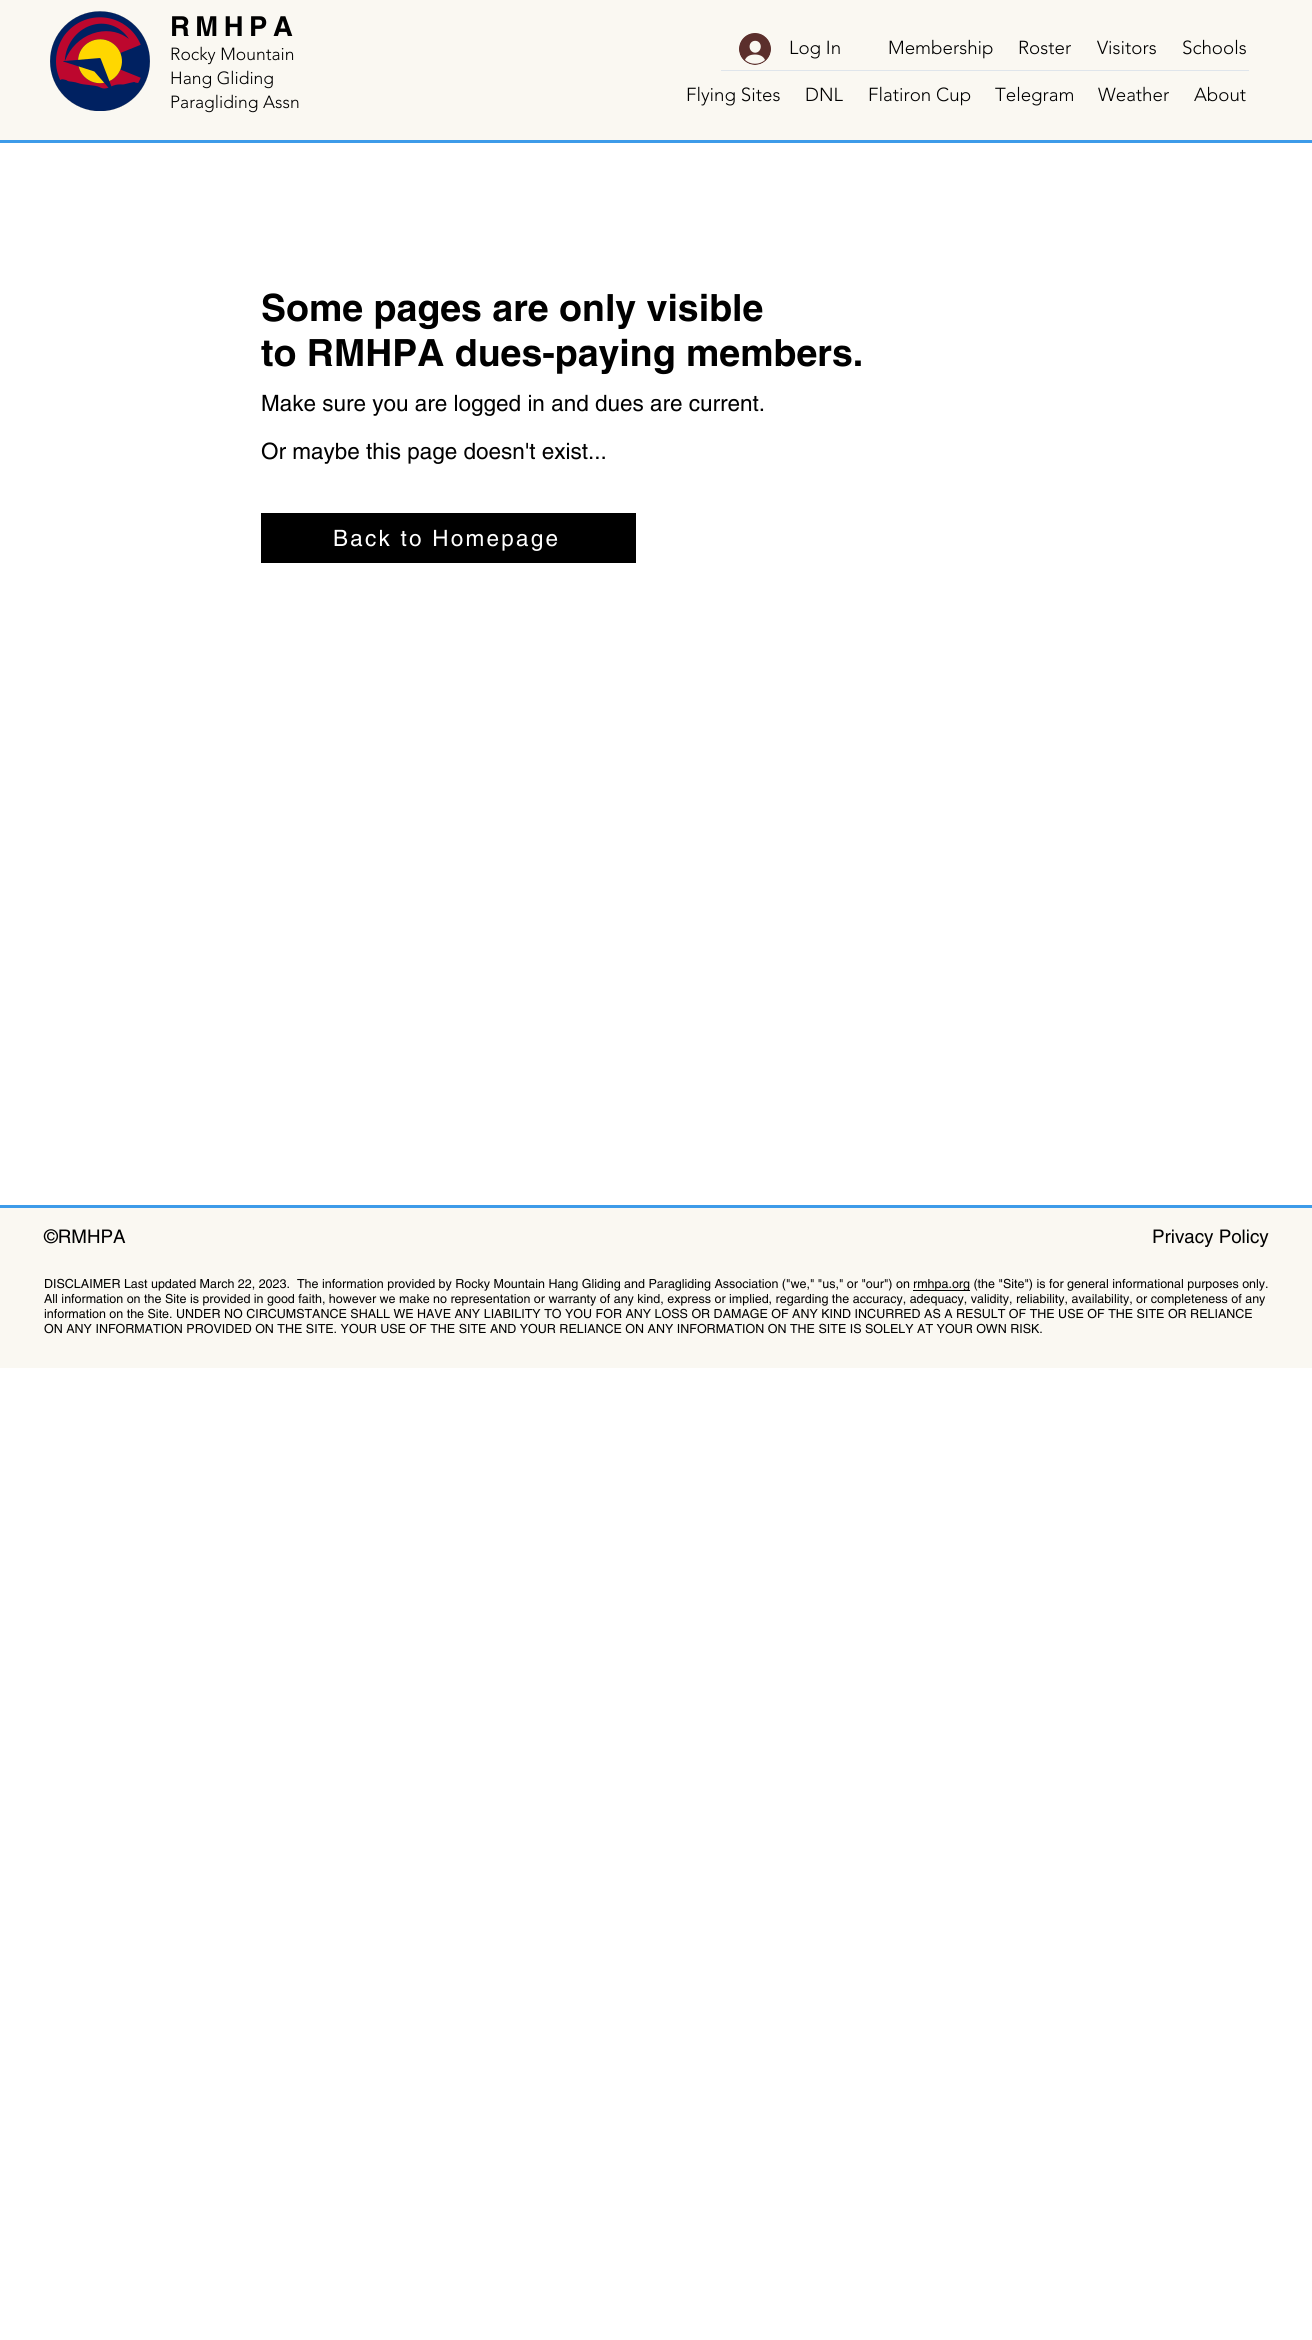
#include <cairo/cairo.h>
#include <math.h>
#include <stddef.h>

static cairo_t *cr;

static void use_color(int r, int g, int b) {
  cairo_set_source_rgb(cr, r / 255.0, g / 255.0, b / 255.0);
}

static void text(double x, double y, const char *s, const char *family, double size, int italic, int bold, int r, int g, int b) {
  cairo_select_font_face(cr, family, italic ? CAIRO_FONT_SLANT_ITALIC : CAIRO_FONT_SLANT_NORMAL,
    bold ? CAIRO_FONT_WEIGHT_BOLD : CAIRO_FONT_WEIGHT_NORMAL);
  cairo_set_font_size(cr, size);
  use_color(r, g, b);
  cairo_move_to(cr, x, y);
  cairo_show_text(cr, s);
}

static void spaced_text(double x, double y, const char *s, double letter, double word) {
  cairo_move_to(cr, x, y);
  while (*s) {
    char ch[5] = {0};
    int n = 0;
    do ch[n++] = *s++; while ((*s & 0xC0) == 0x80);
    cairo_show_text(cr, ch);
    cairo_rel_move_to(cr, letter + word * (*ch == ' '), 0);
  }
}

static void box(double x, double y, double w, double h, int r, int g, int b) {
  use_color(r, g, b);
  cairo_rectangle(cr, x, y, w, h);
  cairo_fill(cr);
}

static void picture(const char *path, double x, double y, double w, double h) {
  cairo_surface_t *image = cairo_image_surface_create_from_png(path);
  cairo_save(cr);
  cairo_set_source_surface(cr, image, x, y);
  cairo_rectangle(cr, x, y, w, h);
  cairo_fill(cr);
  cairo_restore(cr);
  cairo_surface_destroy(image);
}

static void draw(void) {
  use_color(255, 255, 255);
  cairo_paint(cr);
  box(0, 0, 1312, 140, 250, 248, 242);
  box(0, 140, 1312, 3, 61, 155, 233);
  picture("img_01.png", 50, 11, 100, 100);
  picture("img_02.png", 739, 33, 32, 32);
  box(721, 70, 528, 1, 223, 229, 235);
  box(261, 513, 375, 50, 0, 0, 0);
  box(0, 1208, 1312, 160, 250, 248, 242);
  box(0, 1205, 1312, 3, 61, 155, 233);
  box(913, 1290, 57, 1, 0, 0, 0);
  cairo_select_font_face(cr, "helvetica", CAIRO_FONT_SLANT_NORMAL, CAIRO_FONT_WEIGHT_BOLD);
  cairo_set_font_size(cr, 27.5);
  spaced_text(170, 36, "RMHPA", 5.5, 0);
  text(170, 60, "Rocky Mountain", "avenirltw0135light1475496 Light", 17.5, 0, 0, 0, 0, 0);
  text(170, 84, "Hang Gliding", "avenirltw0135light1475496 Light", 17.5, 0, 0, 0, 0, 0);
  text(170, 108, "Paragliding Assn", "avenirltw0135light1475496 Light", 17.5, 0, 0, 0, 0, 0);
  text(789, 54, "Log In", "avenirltw0135light1475496 Light", 18.75, 0, 0, 0, 0, 0);
  text(888, 54, "Membership", "avenirltw0135light1475496 Light", 18.75, 0, 0, 0, 0, 0);
  text(1018, 54, "Roster", "avenirltw0135light1475496 Light", 18.75, 0, 0, 0, 0, 0);
  text(1097, 54, "Visitors", "avenirltw0135light1475496 Light", 18.75, 0, 0, 0, 0, 0);
  text(1182, 54, "Schools", "avenirltw0135light1475496 Light", 18.75, 0, 0, 0, 0, 0);
  text(686, 101, "Flying Sites", "avenirltw0135light1475496 Light", 18.75, 0, 0, 0, 0, 0);
  text(805, 101, "DNL", "avenirltw0135light1475496 Light", 18.75, 0, 0, 0, 0, 0);
  text(868, 101, "Flatiron Cup", "avenirltw0135light1475496 Light", 18.75, 0, 0, 0, 0, 0);
  text(995, 101, "Telegram", "avenirltw0135light1475496 Light", 18.75, 0, 0, 0, 0, 0);
  text(1098, 101, "Weather", "avenirltw0135light1475496 Light", 18.75, 0, 0, 0, 0, 0);
  text(1194, 101, "About", "avenirltw0135light1475496 Light", 18.75, 0, 0, 0, 0, 0);
  text(261, 321, "Some pages are only visible", "helvetica", 37.5, 0, 1, 0, 0, 0);
  text(261, 366, "to RMHPA dues-paying members.", "helvetica", 37.5, 0, 1, 0, 0, 0);
  text(261, 411, "Make sure you are logged in and dues are current.", "helvetica", 22.5, 0, 0, 0, 0, 0);
  text(261, 459, "Or maybe this page doesn't exist...", "helvetica", 22.5, 0, 0, 0, 0, 0);
  use_color(255, 255, 255);
  spaced_text(333, 546, "Back to Homepage", 2.25, 0);
  text(44, 1243, "©RMHPA", "helvetica", 18.75, 0, 0, 0, 0, 0);
  text(1152, 1243, "Privacy Policy", "helvetica", 18.75, 0, 0, 0, 0, 0);
  text(44, 1288, "DISCLAIMER Last updated March 22, 2023.  The information provided by Rocky Mountain Hang Gliding and Paragliding Association (\"we,\" \"us,\" or \"our\") on", "helvetica", 12.5, 0, 0, 0, 0, 0);
  text(913, 1288, "rmhpa.org (the \"Site\") is for general informational purposes only.", "helvetica", 12.5, 0, 0, 0, 0, 0);
  text(44, 1303, "All information on the Site is provided in good faith, however we make no representation or warranty of any kind, express or implied, regarding the accuracy, adequacy, validity, reliability, availability, or completeness of any", "helvetica", 12.5, 0, 0, 0, 0, 0);
  text(44, 1318, "information on the Site. UNDER NO CIRCUMSTANCE SHALL WE HAVE ANY LIABILITY TO YOU FOR ANY LOSS OR DAMAGE OF ANY KIND INCURRED AS A RESULT OF THE USE OF THE SITE OR RELIANCE", "helvetica", 12.5, 0, 0, 0, 0, 0);
  text(44, 1333, "ON ANY INFORMATION PROVIDED ON THE SITE. YOUR USE OF THE SITE AND YOUR RELIANCE ON ANY INFORMATION ON THE SITE IS SOLELY AT YOUR OWN RISK.", "helvetica", 12.5, 0, 0, 0, 0, 0);
}

int main(void) {
  cairo_surface_t *surface = cairo_image_surface_create(CAIRO_FORMAT_RGB24, 1312, 2340);
  cr = cairo_create(surface);
  cairo_font_options_t *options = cairo_font_options_create();
  cairo_font_options_set_hint_metrics(options, CAIRO_HINT_METRICS_OFF);
  cairo_font_options_set_hint_style(options, CAIRO_HINT_STYLE_NONE);
  cairo_set_font_options(cr, options);
  cairo_set_miter_limit(cr, 4);
  draw();
  cairo_surface_write_to_png(surface, "out.png");
  cairo_font_options_destroy(options);
  cairo_destroy(cr);
  cairo_surface_destroy(surface);
  return 0;
}
